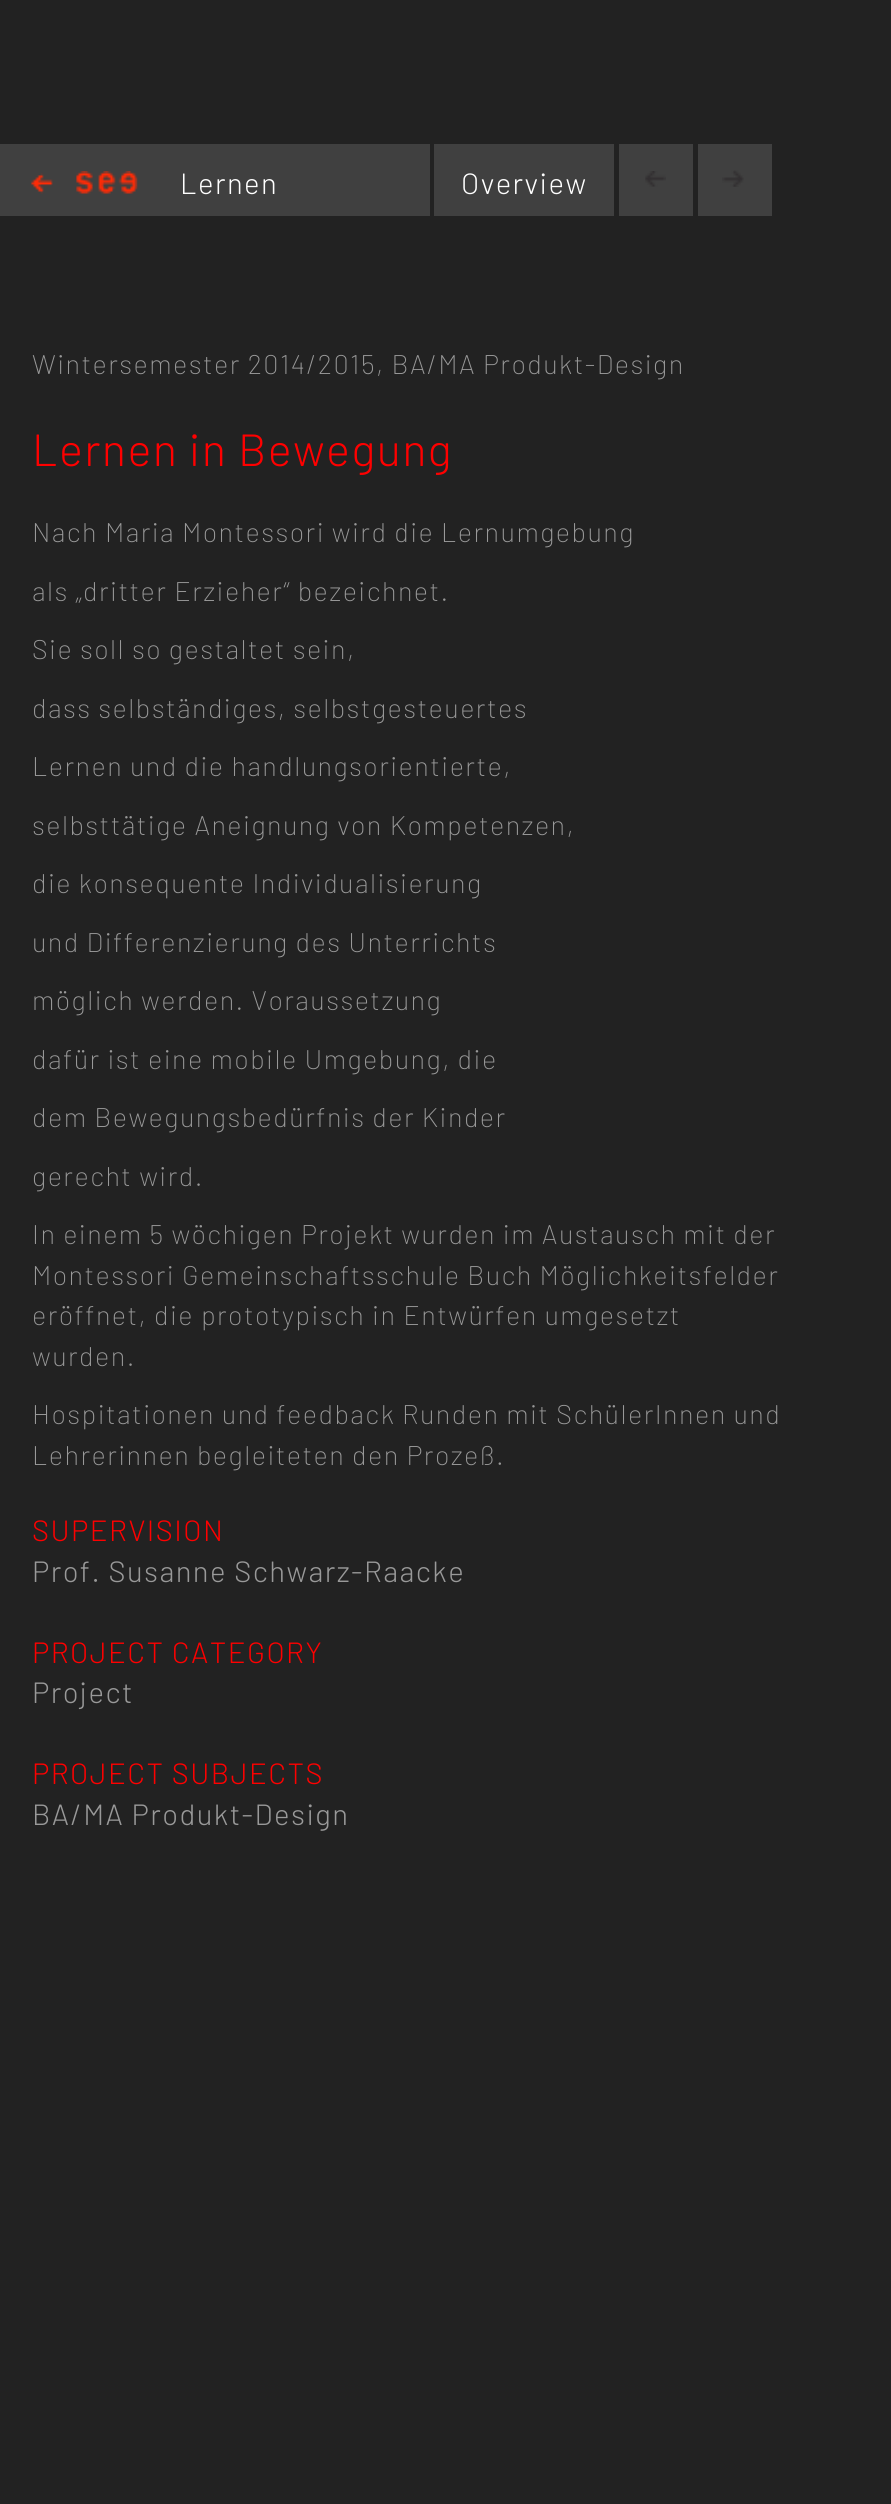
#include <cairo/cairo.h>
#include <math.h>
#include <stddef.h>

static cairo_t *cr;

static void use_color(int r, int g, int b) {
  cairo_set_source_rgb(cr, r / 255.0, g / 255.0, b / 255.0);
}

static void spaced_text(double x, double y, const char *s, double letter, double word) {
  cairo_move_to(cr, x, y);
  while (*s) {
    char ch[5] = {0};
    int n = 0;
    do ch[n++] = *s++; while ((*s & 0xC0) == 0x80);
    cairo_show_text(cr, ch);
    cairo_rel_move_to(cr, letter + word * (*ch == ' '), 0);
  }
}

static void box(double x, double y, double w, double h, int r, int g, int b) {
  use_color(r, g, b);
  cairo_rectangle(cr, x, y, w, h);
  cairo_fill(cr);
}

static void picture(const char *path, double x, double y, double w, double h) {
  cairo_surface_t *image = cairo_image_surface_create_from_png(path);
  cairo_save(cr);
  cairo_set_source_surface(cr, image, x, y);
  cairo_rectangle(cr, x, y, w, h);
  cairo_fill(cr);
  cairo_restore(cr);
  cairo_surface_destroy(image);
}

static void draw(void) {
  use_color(34, 34, 34);
  cairo_paint(cr);
  box(0, 144, 430, 72, 64, 64, 64);
  picture("img_01.png", 31, 171, 107, 23);
  box(434, 144, 180, 72, 64, 64, 64);
  box(619, 144, 74, 72, 64, 64, 64);
  picture("img_02.png", 645, 171, 21, 16);
  box(698, 144, 74, 72, 64, 64, 64);
  picture("img_03.png", 722, 170, 22, 17);
  cairo_select_font_face(cr, "Barlow Light", CAIRO_FONT_SLANT_NORMAL, CAIRO_FONT_WEIGHT_NORMAL);
  cairo_set_font_size(cr, 29.25);
  use_color(255, 255, 255);
  spaced_text(180, 194, "Lernen", 1.45, 0);
  spaced_text(461, 194, "Overview", 1.45, 0);
  cairo_select_font_face(cr, "Barlow ExtraLight", CAIRO_FONT_SLANT_NORMAL, CAIRO_FONT_WEIGHT_NORMAL);
  cairo_set_font_size(cr, 27);
  use_color(153, 153, 153);
  spaced_text(32, 374, "Wintersemester 2014/2015, BA/MA Produkt-Design", 1.45, 0);
  cairo_select_font_face(cr, "Barlow Light", CAIRO_FONT_SLANT_NORMAL, CAIRO_FONT_WEIGHT_NORMAL);
  cairo_set_font_size(cr, 45);
  use_color(255, 0, 0);
  spaced_text(32, 466, "Lernen in Bewegung", 1.45, 0);
  cairo_select_font_face(cr, "Barlow ExtraLight", CAIRO_FONT_SLANT_NORMAL, CAIRO_FONT_WEIGHT_NORMAL);
  cairo_set_font_size(cr, 27);
  use_color(153, 153, 153);
  spaced_text(32, 542, "Nach Maria Montessori wird die Lernumgebung", 1.45, 0);
  spaced_text(32, 601, "als „dritter Erzieher“ bezeichnet.", 1.45, 0);
  spaced_text(32, 659, "Sie soll so gestaltet sein,", 1.45, 0);
  spaced_text(32, 718, "dass selbständiges, selbstgesteuertes", 1.45, 0);
  spaced_text(32, 776, "Lernen und die handlungsorientierte,", 1.45, 0);
  spaced_text(32, 835, "selbsttätige Aneignung von Kompetenzen,", 1.45, 0);
  spaced_text(32, 893, "die konsequente Individualisierung", 1.45, 0);
  spaced_text(32, 952, "und Differenzierung des Unterrichts", 1.45, 0);
  spaced_text(32, 1010, "möglich werden. Voraussetzung", 1.45, 0);
  spaced_text(32, 1069, "dafür ist eine mobile Umgebung, die", 1.45, 0);
  spaced_text(32, 1127, "dem Bewegungsbedürfnis der Kinder", 1.45, 0);
  spaced_text(32, 1186, "gerecht wird.", 1.45, 0);
  spaced_text(32, 1244, "In einem 5 wöchigen Projekt wurden im Austausch mit der", 1.45, 0);
  spaced_text(32, 1285, "Montessori Gemeinschaftsschule Buch Möglichkeitsfelder", 1.45, 0);
  spaced_text(32, 1325, "eröffnet, die prototypisch in Entwürfen umgesetzt", 1.45, 0);
  spaced_text(32, 1366, "wurden.", 1.45, 0);
  spaced_text(32, 1424, "Hospitationen und feedback Runden mit SchülerInnen und", 1.45, 0);
  spaced_text(32, 1465, "Lehrerinnen begleiteten den Prozeß.", 1.45, 0);
  cairo_select_font_face(cr, "Barlow Light", CAIRO_FONT_SLANT_NORMAL, CAIRO_FONT_WEIGHT_NORMAL);
  cairo_set_font_size(cr, 29.25);
  use_color(255, 0, 0);
  spaced_text(32, 1541, "SUPERVISION", 1.45, 0);
  use_color(153, 153, 153);
  spaced_text(32, 1582, "Prof. Susanne Schwarz-Raacke", 1.45, 0);
  use_color(255, 0, 0);
  spaced_text(32, 1663, "PROJECT CATEGORY", 1.45, 0);
  use_color(153, 153, 153);
  spaced_text(32, 1703, "Project", 1.45, 0);
  use_color(255, 0, 0);
  spaced_text(32, 1784, "PROJECT SUBJECTS", 1.45, 0);
  use_color(153, 153, 153);
  spaced_text(32, 1825, "BA/MA Produkt-Design", 1.45, 0);
}

int main(void) {
  cairo_surface_t *surface = cairo_image_surface_create(CAIRO_FORMAT_RGB24, 891, 2504);
  cr = cairo_create(surface);
  cairo_font_options_t *options = cairo_font_options_create();
  cairo_font_options_set_hint_metrics(options, CAIRO_HINT_METRICS_OFF);
  cairo_font_options_set_hint_style(options, CAIRO_HINT_STYLE_NONE);
  cairo_set_font_options(cr, options);
  cairo_set_miter_limit(cr, 4);
  draw();
  cairo_surface_write_to_png(surface, "out.png");
  cairo_font_options_destroy(options);
  cairo_destroy(cr);
  cairo_surface_destroy(surface);
  return 0;
}
